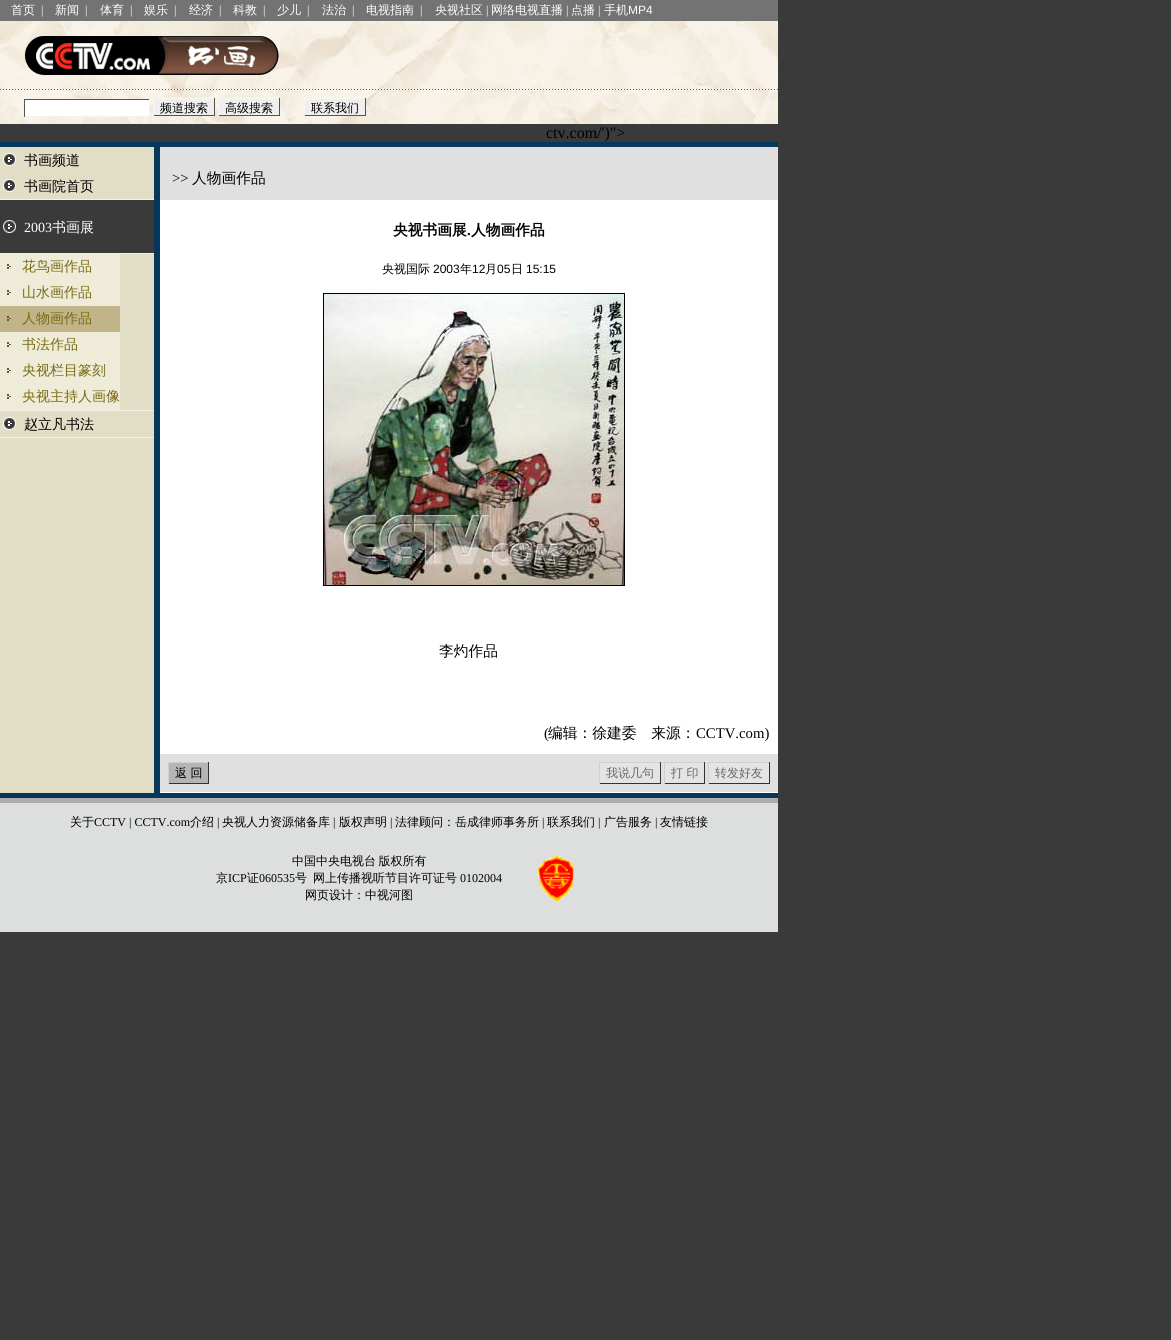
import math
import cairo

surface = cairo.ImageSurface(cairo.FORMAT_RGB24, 1171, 1340)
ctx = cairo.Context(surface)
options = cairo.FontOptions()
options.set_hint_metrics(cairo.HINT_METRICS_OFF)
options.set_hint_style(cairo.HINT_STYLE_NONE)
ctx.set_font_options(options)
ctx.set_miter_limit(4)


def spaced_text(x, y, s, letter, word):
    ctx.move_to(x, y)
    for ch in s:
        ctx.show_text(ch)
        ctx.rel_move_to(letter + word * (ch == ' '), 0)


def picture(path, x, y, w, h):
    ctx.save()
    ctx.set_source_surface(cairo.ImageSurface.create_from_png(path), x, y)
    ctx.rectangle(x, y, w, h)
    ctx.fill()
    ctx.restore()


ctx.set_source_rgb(0.227, 0.227, 0.227)
ctx.paint()
ctx.set_source_rgb(0.451, 0.451, 0.451)
ctx.rectangle(0, 0, 778, 21)
ctx.fill()
ctx.select_font_face("WenQuanYi Zen Hei Medium")
ctx.set_font_size(12)
ctx.set_source_rgb(1, 1, 1)
ctx.move_to(11, 14)
ctx.show_text("首页")
ctx.select_font_face("Liberation Serif")
ctx.move_to(41, 14)
ctx.show_text("|")
ctx.select_font_face("WenQuanYi Zen Hei Medium")
ctx.move_to(55, 14)
ctx.show_text("新闻")
ctx.select_font_face("Liberation Serif")
ctx.move_to(85, 14)
ctx.show_text("|")
ctx.select_font_face("WenQuanYi Zen Hei Medium")
ctx.move_to(100, 14)
ctx.show_text("体育")
ctx.select_font_face("Liberation Serif")
ctx.move_to(130, 14)
ctx.show_text("|")
ctx.select_font_face("WenQuanYi Zen Hei Medium")
ctx.move_to(144, 14)
ctx.show_text("娱乐")
ctx.select_font_face("Liberation Serif")
ctx.move_to(174, 14)
ctx.show_text("|")
ctx.select_font_face("WenQuanYi Zen Hei Medium")
ctx.move_to(189, 14)
ctx.show_text("经济")
ctx.select_font_face("Liberation Serif")
ctx.move_to(219, 14)
ctx.show_text("|")
ctx.select_font_face("WenQuanYi Zen Hei Medium")
ctx.move_to(233, 14)
ctx.show_text("科教")
ctx.select_font_face("Liberation Serif")
ctx.move_to(263, 14)
ctx.show_text("|")
ctx.select_font_face("WenQuanYi Zen Hei Medium")
ctx.move_to(277, 14)
ctx.show_text("少儿")
ctx.select_font_face("Liberation Serif")
ctx.move_to(307, 14)
ctx.show_text("|")
ctx.select_font_face("WenQuanYi Zen Hei Medium")
ctx.move_to(322, 14)
ctx.show_text("法治")
ctx.select_font_face("Liberation Serif")
ctx.move_to(352, 14)
ctx.show_text("|")
ctx.select_font_face("WenQuanYi Zen Hei Medium")
ctx.move_to(366, 14)
ctx.show_text("电视指南")
ctx.select_font_face("Liberation Serif")
ctx.move_to(420, 14)
ctx.show_text("|")
ctx.select_font_face("WenQuanYi Zen Hei Medium")
ctx.move_to(435, 14)
ctx.show_text("央视社区")
ctx.select_font_face("Liberation Serif")
ctx.move_to(486, 14)
ctx.show_text("|")
ctx.select_font_face("WenQuanYi Zen Hei Medium")
ctx.move_to(491, 14)
ctx.show_text("网络电视直播")
ctx.select_font_face("Liberation Serif")
ctx.move_to(566, 14)
ctx.show_text("|")
ctx.select_font_face("WenQuanYi Zen Hei Medium")
ctx.move_to(571, 14)
ctx.show_text("点播")
ctx.select_font_face("Liberation Serif")
ctx.move_to(598, 14)
ctx.show_text("|")
ctx.select_font_face("WenQuanYi Zen Hei Medium")
ctx.move_to(604, 14)
ctx.show_text("手机")
ctx.select_font_face("Liberation Sans")
ctx.move_to(628, 14)
ctx.show_text("MP4")
picture("img1.png", 0, 21, 778, 68)
picture("img2.png", 25, 36, 254, 39)
picture("img3.png", 0, 89, 778, 1)
picture("img4.png", 0, 90, 778, 34)
ctx.rectangle(25, 100, 124, 16)
ctx.fill()
ctx.set_source_rgb(0.337, 0.325, 0.31)
ctx.rectangle(24, 99, 126, 1)
ctx.fill()
ctx.set_source_rgb(0.969, 0.945, 0.914)
ctx.rectangle(149, 99, 1, 18)
ctx.fill()
ctx.rectangle(24, 116, 126, 1)
ctx.fill()
ctx.set_source_rgb(0.337, 0.325, 0.31)
ctx.rectangle(24, 99, 1, 18)
ctx.fill()
ctx.set_source_rgb(0.937, 0.937, 0.937)
ctx.rectangle(154, 99, 60, 16)
ctx.fill()
ctx.set_source_rgb(0.98, 0.965, 0.945)
ctx.rectangle(153, 98, 62, 1)
ctx.fill()
ctx.set_source_rgb(0.333, 0.325, 0.306)
ctx.rectangle(214, 98, 1, 18)
ctx.fill()
ctx.rectangle(153, 115, 62, 1)
ctx.fill()
ctx.set_source_rgb(0.98, 0.965, 0.945)
ctx.rectangle(153, 98, 1, 18)
ctx.fill()
ctx.select_font_face("WenQuanYi Zen Hei Medium")
ctx.set_source_rgb(0, 0, 0)
ctx.move_to(160, 112)
ctx.show_text("频道搜索")
ctx.set_source_rgb(0.937, 0.937, 0.937)
ctx.rectangle(219, 99, 60, 16)
ctx.fill()
ctx.set_source_rgb(0.98, 0.965, 0.945)
ctx.rectangle(218, 98, 62, 1)
ctx.fill()
ctx.set_source_rgb(0.333, 0.325, 0.306)
ctx.rectangle(279, 98, 1, 18)
ctx.fill()
ctx.rectangle(218, 115, 62, 1)
ctx.fill()
ctx.set_source_rgb(0.98, 0.965, 0.945)
ctx.rectangle(218, 98, 1, 18)
ctx.fill()
ctx.set_source_rgb(0, 0, 0)
ctx.move_to(225, 112)
ctx.show_text("高级搜索")
ctx.set_source_rgb(0.937, 0.937, 0.937)
ctx.rectangle(305, 99, 60, 16)
ctx.fill()
ctx.set_source_rgb(0.98, 0.965, 0.945)
ctx.rectangle(304, 98, 62, 1)
ctx.fill()
ctx.set_source_rgb(0.333, 0.325, 0.306)
ctx.rectangle(365, 98, 1, 18)
ctx.fill()
ctx.rectangle(304, 115, 62, 1)
ctx.fill()
ctx.set_source_rgb(0.98, 0.965, 0.945)
ctx.rectangle(304, 98, 1, 18)
ctx.fill()
ctx.set_source_rgb(0, 0, 0)
ctx.move_to(311, 112)
ctx.show_text("联系我们")
ctx.select_font_face("Liberation Serif")
ctx.set_font_size(16)
ctx.move_to(546, 138)
ctx.show_text("ctv.com/')\">")
ctx.set_source_rgb(0.027, 0.216, 0.365)
ctx.rectangle(0, 142, 778, 5)
ctx.fill()
ctx.set_source_rgb(0.886, 0.871, 0.773)
ctx.rectangle(0, 147, 154, 646)
ctx.fill()
picture("img5.png", 3, 153, 13, 13)
ctx.select_font_face("WenQuanYi Zen Hei Medium")
ctx.set_font_size(14)
ctx.set_source_rgb(0, 0, 0)
ctx.move_to(24, 165)
ctx.show_text("书画频道")
picture("img5.png", 3, 179, 13, 13)
ctx.move_to(24, 191)
ctx.show_text("书画院首页")
ctx.set_source_rgb(0.953, 0.949, 0.91)
ctx.rectangle(0, 199, 154, 1)
ctx.fill()
ctx.set_source_rgb(0.227, 0.227, 0.227)
ctx.rectangle(0, 200, 154, 53)
ctx.fill()
picture("img6.png", 3, 220, 13, 13)
ctx.select_font_face("Liberation Serif")
ctx.set_source_rgb(1, 1, 1)
ctx.move_to(24, 232)
ctx.show_text("2003")
ctx.select_font_face("WenQuanYi Zen Hei Medium")
ctx.move_to(52, 232)
ctx.show_text("书画展")
ctx.set_source_rgb(0.953, 0.949, 0.91)
ctx.rectangle(0, 253, 154, 1)
ctx.fill()
ctx.set_source_rgb(0.933, 0.922, 0.851)
ctx.rectangle(0, 254, 120, 52)
ctx.fill()
picture("img7.png", 7, 264, 4, 5)
ctx.set_source_rgb(0.471, 0.416, 0.075)
ctx.move_to(22, 271)
ctx.show_text("花鸟画作品")
picture("img7.png", 7, 290, 4, 5)
ctx.move_to(22, 297)
ctx.show_text("山水画作品")
ctx.set_source_rgb(0.757, 0.706, 0.533)
ctx.rectangle(0, 306, 120, 26)
ctx.fill()
picture("img8.png", 7, 316, 4, 5)
ctx.set_source_rgb(0.471, 0.416, 0.075)
ctx.move_to(22, 323)
ctx.show_text("人物画作品")
ctx.set_source_rgb(0.933, 0.922, 0.851)
ctx.rectangle(0, 332, 120, 78)
ctx.fill()
picture("img7.png", 7, 342, 4, 5)
ctx.set_source_rgb(0.471, 0.416, 0.075)
ctx.move_to(22, 349)
ctx.show_text("书法作品")
picture("img7.png", 7, 368, 4, 5)
ctx.move_to(22, 375)
ctx.show_text("央视栏目篆刻")
picture("img7.png", 7, 394, 4, 5)
ctx.move_to(22, 401)
ctx.show_text("央视主持人画像")
ctx.set_source_rgb(0.953, 0.949, 0.91)
ctx.rectangle(0, 410, 154, 1)
ctx.fill()
picture("img5.png", 3, 417, 13, 13)
ctx.set_source_rgb(0, 0, 0)
ctx.move_to(24, 429)
ctx.show_text("赵立凡书法")
ctx.set_source_rgb(0.953, 0.949, 0.91)
ctx.rectangle(0, 437, 154, 1)
ctx.fill()
ctx.set_source_rgb(0.027, 0.216, 0.365)
ctx.rectangle(154, 147, 6, 646)
ctx.fill()
ctx.set_source_rgb(1, 1, 1)
ctx.rectangle(160, 200, 618, 593)
ctx.fill()
ctx.set_source_rgb(0.878, 0.878, 0.878)
ctx.rectangle(160, 147, 618, 53)
ctx.fill()
ctx.select_font_face("Liberation Serif")
ctx.set_font_size(14.75)
ctx.set_source_rgb(0, 0, 0)
ctx.move_to(172, 183)
ctx.show_text(">>")
ctx.select_font_face("WenQuanYi Zen Hei Medium")
ctx.move_to(192, 183)
ctx.show_text("人物画作品")
ctx.select_font_face("WenQuanYi Zen Hei", cairo.FONT_SLANT_NORMAL, cairo.FONT_WEIGHT_BOLD)
ctx.move_to(393, 235)
ctx.show_text("央视书画展")
ctx.select_font_face("Liberation Serif", cairo.FONT_SLANT_NORMAL, cairo.FONT_WEIGHT_BOLD)
ctx.move_to(467, 235)
ctx.show_text(".")
ctx.select_font_face("WenQuanYi Zen Hei", cairo.FONT_SLANT_NORMAL, cairo.FONT_WEIGHT_BOLD)
ctx.move_to(471, 235)
ctx.show_text("人物画作品")
ctx.select_font_face("WenQuanYi Zen Hei Medium")
ctx.set_font_size(12)
ctx.move_to(382, 273)
ctx.show_text("央视国际")
ctx.select_font_face("Liberation Sans")
ctx.move_to(433, 273)
ctx.show_text("2003")
ctx.select_font_face("WenQuanYi Zen Hei Medium")
ctx.move_to(460, 273)
ctx.show_text("年")
ctx.select_font_face("Liberation Sans")
ctx.move_to(472, 273)
ctx.show_text("12")
ctx.select_font_face("WenQuanYi Zen Hei Medium")
ctx.move_to(485, 273)
ctx.show_text("月")
ctx.select_font_face("Liberation Sans")
ctx.move_to(497, 273)
ctx.show_text("05")
ctx.select_font_face("WenQuanYi Zen Hei Medium")
ctx.move_to(511, 273)
ctx.show_text("日")
ctx.select_font_face("Liberation Sans")
ctx.move_to(526, 273)
ctx.show_text("15:15")
ctx.rectangle(323.5, 293.5, 301, 292)
ctx.set_line_width(1)
ctx.stroke()
picture("img9.png", 324, 294, 300, 291)
ctx.select_font_face("WenQuanYi Zen Hei Medium")
ctx.set_font_size(14.75)
ctx.move_to(439, 656)
ctx.show_text("李灼作品")
ctx.select_font_face("Liberation Serif")
ctx.move_to(544, 738)
ctx.show_text("(")
ctx.select_font_face("WenQuanYi Zen Hei Medium")
ctx.move_to(548, 738)
ctx.show_text("编辑：徐建委　来源：")
ctx.select_font_face("Liberation Serif")
ctx.move_to(696, 738)
ctx.show_text("CCTV.com)")
ctx.set_source_rgb(0.878, 0.878, 0.878)
ctx.rectangle(160, 754, 618, 38)
ctx.fill()
ctx.set_source_rgb(0.71, 0.71, 0.71)
ctx.rectangle(169, 763, 39, 20)
ctx.fill()
ctx.set_source_rgb(0.816, 0.816, 0.816)
ctx.rectangle(168, 762, 41, 1)
ctx.fill()
ctx.set_source_rgb(0.192, 0.192, 0.192)
ctx.rectangle(208, 762, 1, 22)
ctx.fill()
ctx.rectangle(168, 783, 41, 1)
ctx.fill()
ctx.set_source_rgb(0.816, 0.816, 0.816)
ctx.rectangle(168, 762, 1, 22)
ctx.fill()
ctx.select_font_face("WenQuanYi Zen Hei Medium")
ctx.set_font_size(12)
ctx.set_source_rgb(0, 0, 0)
ctx.move_to(175, 777)
ctx.show_text("返 回")
ctx.set_source_rgb(0.894, 0.894, 0.894)
ctx.rectangle(600, 763, 60, 20)
ctx.fill()
ctx.set_source_rgb(0.816, 0.816, 0.816)
ctx.rectangle(599, 762, 62, 1)
ctx.fill()
ctx.set_source_rgb(0.192, 0.192, 0.192)
ctx.rectangle(660, 762, 1, 22)
ctx.fill()
ctx.rectangle(599, 783, 62, 1)
ctx.fill()
ctx.set_source_rgb(0.816, 0.816, 0.816)
ctx.rectangle(599, 762, 1, 22)
ctx.fill()
ctx.set_source_rgb(0.4, 0.4, 0.4)
ctx.move_to(606, 777)
ctx.show_text("我说几句")
ctx.set_source_rgb(0.894, 0.894, 0.894)
ctx.rectangle(665, 763, 39, 20)
ctx.fill()
ctx.set_source_rgb(0.816, 0.816, 0.816)
ctx.rectangle(664, 762, 41, 1)
ctx.fill()
ctx.set_source_rgb(0.192, 0.192, 0.192)
ctx.rectangle(704, 762, 1, 22)
ctx.fill()
ctx.rectangle(664, 783, 41, 1)
ctx.fill()
ctx.set_source_rgb(0.816, 0.816, 0.816)
ctx.rectangle(664, 762, 1, 22)
ctx.fill()
ctx.set_source_rgb(0.4, 0.4, 0.4)
ctx.move_to(671, 777)
ctx.show_text("打 印")
ctx.set_source_rgb(0.894, 0.894, 0.894)
ctx.rectangle(709, 763, 60, 20)
ctx.fill()
ctx.set_source_rgb(0.816, 0.816, 0.816)
ctx.rectangle(708, 762, 62, 1)
ctx.fill()
ctx.set_source_rgb(0.192, 0.192, 0.192)
ctx.rectangle(769, 762, 1, 22)
ctx.fill()
ctx.rectangle(708, 783, 62, 1)
ctx.fill()
ctx.set_source_rgb(0.816, 0.816, 0.816)
ctx.rectangle(708, 762, 1, 22)
ctx.fill()
ctx.set_source_rgb(0.4, 0.4, 0.4)
ctx.move_to(715, 777)
ctx.show_text("转发好友")
ctx.set_source_rgb(0.027, 0.216, 0.365)
ctx.rectangle(0, 793, 778, 5)
ctx.fill()
ctx.set_source_rgb(0.686, 0.682, 0.686)
ctx.rectangle(0, 798, 778, 5)
ctx.fill()
ctx.set_source_rgb(0.867, 0.871, 0.871)
ctx.rectangle(0, 803, 778, 129)
ctx.fill()
ctx.set_source_rgb(0, 0, 0)
ctx.move_to(70, 826)
ctx.show_text("关于")
ctx.select_font_face("Liberation Serif")
ctx.move_to(94, 826)
ctx.show_text("CCTV | CCTV.com")
ctx.select_font_face("WenQuanYi Zen Hei Medium")
ctx.move_to(190, 826)
ctx.show_text("介绍")
ctx.select_font_face("Liberation Serif")
ctx.move_to(217, 826)
ctx.show_text("|")
ctx.select_font_face("WenQuanYi Zen Hei Medium")
ctx.move_to(222, 826)
ctx.show_text("央视人力资源储备库")
ctx.select_font_face("Liberation Serif")
ctx.move_to(333, 826)
ctx.show_text("|")
ctx.select_font_face("WenQuanYi Zen Hei Medium")
ctx.move_to(339, 826)
ctx.show_text("版权声明")
ctx.select_font_face("Liberation Serif")
ctx.move_to(390, 826)
ctx.show_text("|")
ctx.select_font_face("WenQuanYi Zen Hei Medium")
ctx.move_to(395, 826)
ctx.show_text("法律顾问：岳成律师事务所")
ctx.select_font_face("Liberation Serif")
ctx.move_to(542, 826)
ctx.show_text("|")
ctx.select_font_face("WenQuanYi Zen Hei Medium")
ctx.move_to(547, 826)
ctx.show_text("联系我们")
ctx.select_font_face("Liberation Serif")
ctx.move_to(598, 826)
ctx.show_text("|")
ctx.select_font_face("WenQuanYi Zen Hei Medium")
ctx.move_to(604, 826)
ctx.show_text("广告服务")
ctx.select_font_face("Liberation Serif")
ctx.move_to(655, 826)
ctx.show_text("|")
ctx.select_font_face("WenQuanYi Zen Hei Medium")
ctx.move_to(660, 826)
ctx.show_text("友情链接")
spaced_text(292, 865, "中国中央电视台 版权所有", 0, -1)
ctx.move_to(216, 882)
ctx.show_text("京")
ctx.select_font_face("Liberation Serif")
ctx.move_to(228, 882)
ctx.show_text("ICP")
ctx.select_font_face("WenQuanYi Zen Hei Medium")
ctx.move_to(247, 882)
ctx.show_text("证")
ctx.select_font_face("Liberation Serif")
ctx.move_to(259, 882)
ctx.show_text("060535")
ctx.select_font_face("WenQuanYi Zen Hei Medium")
ctx.move_to(295, 882)
ctx.show_text("号")
ctx.move_to(313, 882)
ctx.show_text("网上传播视听节目许可证号")
ctx.select_font_face("Liberation Serif")
ctx.move_to(460, 882)
ctx.show_text("0102004")
ctx.select_font_face("WenQuanYi Zen Hei Medium")
ctx.move_to(305, 899)
ctx.show_text("网页设计：中视河图")
picture("img10.png", 538, 856, 36, 45)
surface.write_to_png("page.png")
